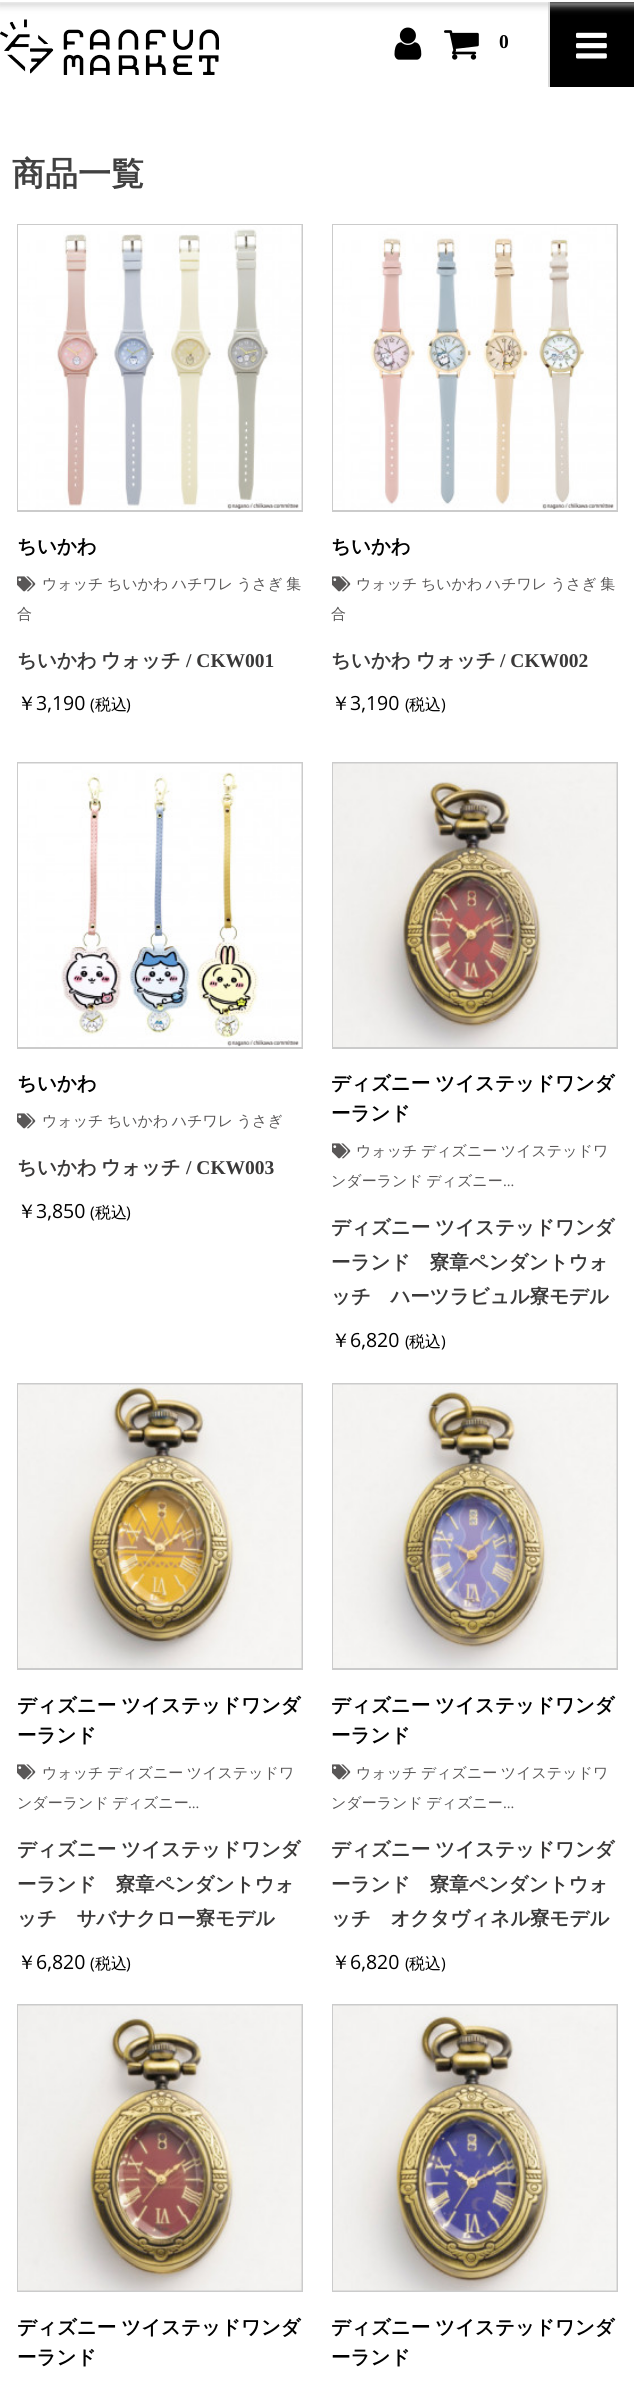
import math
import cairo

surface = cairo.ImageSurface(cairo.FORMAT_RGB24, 634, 2386)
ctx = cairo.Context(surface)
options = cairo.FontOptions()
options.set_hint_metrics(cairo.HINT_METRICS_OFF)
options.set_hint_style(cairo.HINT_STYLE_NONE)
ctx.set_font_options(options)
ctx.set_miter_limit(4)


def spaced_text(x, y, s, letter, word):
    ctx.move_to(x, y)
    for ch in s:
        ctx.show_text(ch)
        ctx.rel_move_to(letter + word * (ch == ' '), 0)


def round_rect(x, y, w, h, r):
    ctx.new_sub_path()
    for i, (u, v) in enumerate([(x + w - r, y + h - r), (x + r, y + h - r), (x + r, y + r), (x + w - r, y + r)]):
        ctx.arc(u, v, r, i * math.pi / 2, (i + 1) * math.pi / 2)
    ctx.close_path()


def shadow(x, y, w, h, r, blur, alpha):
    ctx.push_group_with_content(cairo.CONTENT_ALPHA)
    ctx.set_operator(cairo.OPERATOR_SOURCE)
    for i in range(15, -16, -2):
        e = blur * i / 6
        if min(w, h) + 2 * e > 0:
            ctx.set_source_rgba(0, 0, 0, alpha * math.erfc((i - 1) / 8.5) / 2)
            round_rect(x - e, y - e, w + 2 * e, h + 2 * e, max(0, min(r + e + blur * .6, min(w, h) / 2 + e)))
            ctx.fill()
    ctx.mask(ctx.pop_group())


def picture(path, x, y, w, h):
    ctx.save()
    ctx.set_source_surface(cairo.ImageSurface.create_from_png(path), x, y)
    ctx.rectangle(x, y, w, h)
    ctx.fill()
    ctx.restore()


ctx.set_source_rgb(1, 1, 1)
ctx.paint()
ctx.set_source_rgb(0, 0, 0)
ctx.rectangle(550, 2, 84, 85)
ctx.fill()
ctx.set_source_rgb(0.855, 0.855, 0.855)
ctx.rectangle(548, 0, 2, 87)
ctx.fill()
ctx.set_source_rgb(0.8, 0.8, 0.8)
shadow(0, 3, 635, 2, 0, 4, 1)
ctx.set_source_rgb(1, 1, 1)
ctx.rectangle(0, 0, 634, 2)
ctx.fill()
picture("img1.png", 0, 19, 219, 56)
picture("img2.png", 394, 27, 28, 33)
picture("img3.png", 444, 30, 35, 30)
ctx.select_font_face("Liberation Serif", cairo.FONT_SLANT_NORMAL, cairo.FONT_WEIGHT_BOLD)
ctx.set_font_size(19.5)
ctx.set_source_rgb(0, 0, 0)
ctx.move_to(499, 48)
ctx.show_text("0")
picture("img4.png", 576, 32, 31, 27)
ctx.select_font_face("WenQuanYi Zen Hei", cairo.FONT_SLANT_NORMAL, cairo.FONT_WEIGHT_BOLD)
ctx.set_font_size(33)
ctx.set_source_rgb(0.255, 0.255, 0.255)
ctx.move_to(12, 185)
ctx.show_text("商品一覧")
ctx.rectangle(18, 225, 284, 286)
ctx.set_source_rgb(0.796, 0.796, 0.796)
ctx.stroke()
picture("img5.png", 18, 225, 284, 285)
ctx.set_font_size(19.5)
ctx.set_source_rgb(0, 0, 0)
ctx.move_to(17, 553)
ctx.show_text("ちいかわ")
picture("img6.png", 17, 576, 19, 16)
ctx.select_font_face("WenQuanYi Zen Hei Medium")
ctx.set_font_size(15)
ctx.set_source_rgb(0.349, 0.341, 0.341)
spaced_text(42, 589, "ウォッチ ちいかわ ハチワレ うさぎ 集", 0, -1)
ctx.move_to(17, 619)
ctx.show_text("合")
ctx.select_font_face("WenQuanYi Zen Hei", cairo.FONT_SLANT_NORMAL, cairo.FONT_WEIGHT_BOLD)
ctx.set_font_size(19.5)
ctx.set_source_rgb(0.227, 0.224, 0.224)
ctx.move_to(17, 667)
ctx.show_text("ちいかわ")
ctx.move_to(101, 667)
ctx.show_text("ウォッチ")
ctx.select_font_face("Liberation Serif", cairo.FONT_SLANT_NORMAL, cairo.FONT_WEIGHT_BOLD)
ctx.move_to(186, 667)
ctx.show_text("/ CKW001")
ctx.select_font_face("WenQuanYi Zen Hei Medium")
ctx.set_source_rgb(0, 0, 0)
ctx.move_to(17, 710)
ctx.show_text("￥")
ctx.select_font_face("Open Sans")
ctx.move_to(36, 710)
ctx.show_text("3,190")
ctx.set_font_size(16)
ctx.move_to(90, 710)
ctx.show_text("(")
ctx.select_font_face("WenQuanYi Zen Hei Medium")
ctx.move_to(95, 710)
ctx.show_text("税込")
ctx.select_font_face("Open Sans")
ctx.move_to(126, 710)
ctx.show_text(")")
ctx.rectangle(333, 225, 284, 286)
ctx.set_source_rgb(0.796, 0.796, 0.796)
ctx.stroke()
picture("img7.png", 333, 225, 284, 285)
ctx.select_font_face("WenQuanYi Zen Hei", cairo.FONT_SLANT_NORMAL, cairo.FONT_WEIGHT_BOLD)
ctx.set_font_size(19.5)
ctx.set_source_rgb(0, 0, 0)
ctx.move_to(331, 553)
ctx.show_text("ちいかわ")
picture("img6.png", 332, 576, 19, 16)
ctx.select_font_face("WenQuanYi Zen Hei Medium")
ctx.set_font_size(15)
ctx.set_source_rgb(0.349, 0.341, 0.341)
spaced_text(356, 589, "ウォッチ ちいかわ ハチワレ うさぎ 集", 0, -1)
ctx.move_to(331, 619)
ctx.show_text("合")
ctx.select_font_face("WenQuanYi Zen Hei", cairo.FONT_SLANT_NORMAL, cairo.FONT_WEIGHT_BOLD)
ctx.set_font_size(19.5)
ctx.set_source_rgb(0.227, 0.224, 0.224)
ctx.move_to(331, 667)
ctx.show_text("ちいかわ")
ctx.move_to(416, 667)
ctx.show_text("ウォッチ")
ctx.select_font_face("Liberation Serif", cairo.FONT_SLANT_NORMAL, cairo.FONT_WEIGHT_BOLD)
ctx.move_to(500, 667)
ctx.show_text("/ CKW002")
ctx.select_font_face("WenQuanYi Zen Hei Medium")
ctx.set_source_rgb(0, 0, 0)
ctx.move_to(331, 710)
ctx.show_text("￥")
ctx.select_font_face("Open Sans")
ctx.move_to(350, 710)
ctx.show_text("3,190")
ctx.set_font_size(16)
ctx.move_to(405, 710)
ctx.show_text("(")
ctx.select_font_face("WenQuanYi Zen Hei Medium")
ctx.move_to(409, 710)
ctx.show_text("税込")
ctx.select_font_face("Open Sans")
ctx.move_to(441, 710)
ctx.show_text(")")
ctx.rectangle(18, 763, 284, 285)
ctx.set_source_rgb(0.796, 0.796, 0.796)
ctx.stroke()
picture("img8.png", 18, 763, 284, 284)
ctx.select_font_face("WenQuanYi Zen Hei", cairo.FONT_SLANT_NORMAL, cairo.FONT_WEIGHT_BOLD)
ctx.set_font_size(19.5)
ctx.set_source_rgb(0, 0, 0)
ctx.move_to(17, 1090)
ctx.show_text("ちいかわ")
picture("img6.png", 17, 1113, 19, 16)
ctx.select_font_face("WenQuanYi Zen Hei Medium")
ctx.set_font_size(15)
ctx.set_source_rgb(0.349, 0.341, 0.341)
spaced_text(42, 1126, "ウォッチ ちいかわ ハチワレ うさぎ", 0, -1)
ctx.select_font_face("WenQuanYi Zen Hei", cairo.FONT_SLANT_NORMAL, cairo.FONT_WEIGHT_BOLD)
ctx.set_font_size(19.5)
ctx.set_source_rgb(0.227, 0.224, 0.224)
ctx.move_to(17, 1174)
ctx.show_text("ちいかわ")
ctx.move_to(101, 1174)
ctx.show_text("ウォッチ")
ctx.select_font_face("Liberation Serif", cairo.FONT_SLANT_NORMAL, cairo.FONT_WEIGHT_BOLD)
ctx.move_to(186, 1174)
ctx.show_text("/ CKW003")
ctx.select_font_face("WenQuanYi Zen Hei Medium")
ctx.set_source_rgb(0, 0, 0)
ctx.move_to(17, 1218)
ctx.show_text("￥")
ctx.select_font_face("Open Sans")
ctx.move_to(36, 1218)
ctx.show_text("3,850")
ctx.set_font_size(16)
ctx.move_to(90, 1218)
ctx.show_text("(")
ctx.select_font_face("WenQuanYi Zen Hei Medium")
ctx.move_to(95, 1218)
ctx.show_text("税込")
ctx.select_font_face("Open Sans")
ctx.move_to(126, 1218)
ctx.show_text(")")
ctx.rectangle(333, 763, 284, 285)
ctx.set_source_rgb(0.796, 0.796, 0.796)
ctx.stroke()
picture("img9.png", 333, 763, 284, 284)
ctx.select_font_face("WenQuanYi Zen Hei", cairo.FONT_SLANT_NORMAL, cairo.FONT_WEIGHT_BOLD)
ctx.set_font_size(19.5)
ctx.set_source_rgb(0, 0, 0)
spaced_text(331, 1090, "ディズニー ツイステッドワンダ", 0, -1)
ctx.move_to(331, 1120)
ctx.show_text("ーランド")
picture("img6.png", 332, 1143, 19, 16)
ctx.select_font_face("WenQuanYi Zen Hei Medium")
ctx.set_font_size(15)
ctx.set_source_rgb(0.349, 0.341, 0.341)
spaced_text(356, 1156, "ウォッチ ディズニー ツイステッドワ", 0, -1)
spaced_text(331, 1186, "ンダーランド ディズニー", 0, -1)
ctx.select_font_face("Liberation Serif")
ctx.move_to(503, 1186)
ctx.show_text("...")
ctx.select_font_face("WenQuanYi Zen Hei", cairo.FONT_SLANT_NORMAL, cairo.FONT_WEIGHT_BOLD)
ctx.set_font_size(19.5)
ctx.set_source_rgb(0.227, 0.224, 0.224)
spaced_text(331, 1234, "ディズニー ツイステッドワンダ", 0, -1)
ctx.move_to(331, 1269)
ctx.show_text("ーランド　寮章ペンダントウォ")
ctx.move_to(331, 1303)
ctx.show_text("ッチ　ハーツラビュル寮モデル")
ctx.select_font_face("WenQuanYi Zen Hei Medium")
ctx.set_source_rgb(0, 0, 0)
ctx.move_to(331, 1347)
ctx.show_text("￥")
ctx.select_font_face("Open Sans")
ctx.move_to(350, 1347)
ctx.show_text("6,820")
ctx.set_font_size(16)
ctx.move_to(405, 1347)
ctx.show_text("(")
ctx.select_font_face("WenQuanYi Zen Hei Medium")
ctx.move_to(409, 1347)
ctx.show_text("税込")
ctx.select_font_face("Open Sans")
ctx.move_to(441, 1347)
ctx.show_text(")")
ctx.rectangle(18, 1384, 284, 285)
ctx.set_source_rgb(0.796, 0.796, 0.796)
ctx.stroke()
picture("img10.png", 18, 1384, 284, 284)
ctx.select_font_face("WenQuanYi Zen Hei", cairo.FONT_SLANT_NORMAL, cairo.FONT_WEIGHT_BOLD)
ctx.set_font_size(19.5)
ctx.set_source_rgb(0, 0, 0)
spaced_text(17, 1712, "ディズニー ツイステッドワンダ", 0, -1)
ctx.move_to(17, 1742)
ctx.show_text("ーランド")
picture("img6.png", 17, 1764, 19, 16)
ctx.select_font_face("WenQuanYi Zen Hei Medium")
ctx.set_font_size(15)
ctx.set_source_rgb(0.349, 0.341, 0.341)
spaced_text(42, 1778, "ウォッチ ディズニー ツイステッドワ", 0, -1)
spaced_text(17, 1808, "ンダーランド ディズニー", 0, -1)
ctx.select_font_face("Liberation Serif")
ctx.move_to(188, 1808)
ctx.show_text("...")
ctx.select_font_face("WenQuanYi Zen Hei", cairo.FONT_SLANT_NORMAL, cairo.FONT_WEIGHT_BOLD)
ctx.set_font_size(19.5)
ctx.set_source_rgb(0.227, 0.224, 0.224)
spaced_text(17, 1856, "ディズニー ツイステッドワンダ", 0, -1)
ctx.move_to(17, 1891)
ctx.show_text("ーランド　寮章ペンダントウォ")
ctx.move_to(17, 1925)
ctx.show_text("ッチ　サバナクロー寮モデル")
ctx.select_font_face("WenQuanYi Zen Hei Medium")
ctx.set_source_rgb(0, 0, 0)
ctx.move_to(17, 1969)
ctx.show_text("￥")
ctx.select_font_face("Open Sans")
ctx.move_to(36, 1969)
ctx.show_text("6,820")
ctx.set_font_size(16)
ctx.move_to(90, 1969)
ctx.show_text("(")
ctx.select_font_face("WenQuanYi Zen Hei Medium")
ctx.move_to(95, 1969)
ctx.show_text("税込")
ctx.select_font_face("Open Sans")
ctx.move_to(126, 1969)
ctx.show_text(")")
ctx.rectangle(333, 1384, 284, 285)
ctx.set_source_rgb(0.796, 0.796, 0.796)
ctx.stroke()
picture("img11.png", 333, 1384, 284, 284)
ctx.select_font_face("WenQuanYi Zen Hei", cairo.FONT_SLANT_NORMAL, cairo.FONT_WEIGHT_BOLD)
ctx.set_font_size(19.5)
ctx.set_source_rgb(0, 0, 0)
spaced_text(331, 1712, "ディズニー ツイステッドワンダ", 0, -1)
ctx.move_to(331, 1742)
ctx.show_text("ーランド")
picture("img6.png", 332, 1764, 19, 16)
ctx.select_font_face("WenQuanYi Zen Hei Medium")
ctx.set_font_size(15)
ctx.set_source_rgb(0.349, 0.341, 0.341)
spaced_text(356, 1778, "ウォッチ ディズニー ツイステッドワ", 0, -1)
spaced_text(331, 1808, "ンダーランド ディズニー", 0, -1)
ctx.select_font_face("Liberation Serif")
ctx.move_to(503, 1808)
ctx.show_text("...")
ctx.select_font_face("WenQuanYi Zen Hei", cairo.FONT_SLANT_NORMAL, cairo.FONT_WEIGHT_BOLD)
ctx.set_font_size(19.5)
ctx.set_source_rgb(0.227, 0.224, 0.224)
spaced_text(331, 1856, "ディズニー ツイステッドワンダ", 0, -1)
ctx.move_to(331, 1891)
ctx.show_text("ーランド　寮章ペンダントウォ")
ctx.move_to(331, 1925)
ctx.show_text("ッチ　オクタヴィネル寮モデル")
ctx.select_font_face("WenQuanYi Zen Hei Medium")
ctx.set_source_rgb(0, 0, 0)
ctx.move_to(331, 1969)
ctx.show_text("￥")
ctx.select_font_face("Open Sans")
ctx.move_to(350, 1969)
ctx.show_text("6,820")
ctx.set_font_size(16)
ctx.move_to(405, 1969)
ctx.show_text("(")
ctx.select_font_face("WenQuanYi Zen Hei Medium")
ctx.move_to(409, 1969)
ctx.show_text("税込")
ctx.select_font_face("Open Sans")
ctx.move_to(441, 1969)
ctx.show_text(")")
ctx.rectangle(18, 2005, 284, 286)
ctx.set_source_rgb(0.796, 0.796, 0.796)
ctx.stroke()
picture("img12.png", 18, 2005, 284, 286)
ctx.select_font_face("WenQuanYi Zen Hei", cairo.FONT_SLANT_NORMAL, cairo.FONT_WEIGHT_BOLD)
ctx.set_font_size(19.5)
ctx.set_source_rgb(0, 0, 0)
spaced_text(17, 2334, "ディズニー ツイステッドワンダ", 0, -1)
ctx.move_to(17, 2364)
ctx.show_text("ーランド")
ctx.rectangle(333, 2005, 284, 286)
ctx.set_source_rgb(0.796, 0.796, 0.796)
ctx.stroke()
picture("img13.png", 333, 2005, 284, 286)
ctx.set_source_rgb(0, 0, 0)
spaced_text(331, 2334, "ディズニー ツイステッドワンダ", 0, -1)
ctx.move_to(331, 2364)
ctx.show_text("ーランド")
surface.write_to_png("page.png")
